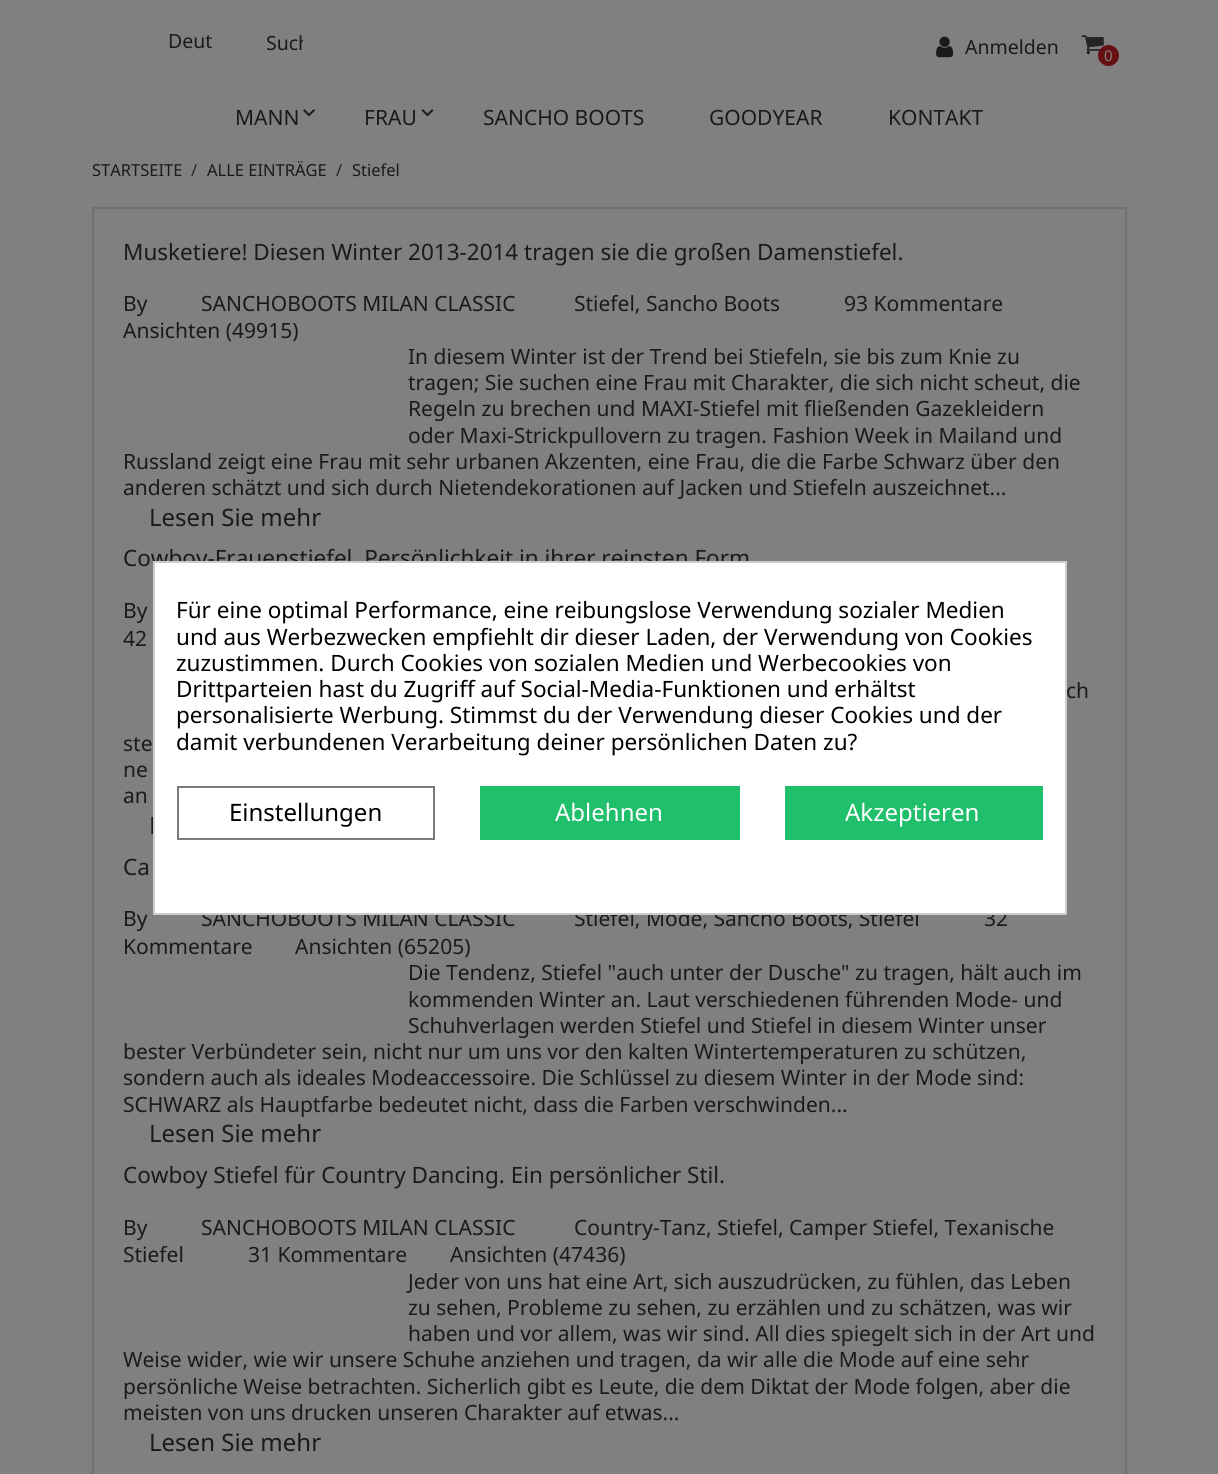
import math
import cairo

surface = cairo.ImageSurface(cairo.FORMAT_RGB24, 1218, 1474)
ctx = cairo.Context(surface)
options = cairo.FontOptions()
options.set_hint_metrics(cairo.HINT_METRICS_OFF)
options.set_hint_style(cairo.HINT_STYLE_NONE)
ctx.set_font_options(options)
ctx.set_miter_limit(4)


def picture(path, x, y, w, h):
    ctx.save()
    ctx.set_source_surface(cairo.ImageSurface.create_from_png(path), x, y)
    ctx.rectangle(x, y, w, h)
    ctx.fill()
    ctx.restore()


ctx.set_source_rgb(0.502, 0.502, 0.502)
ctx.paint()
ctx.select_font_face("Noto Sans")
ctx.set_font_size(19.5)
ctx.set_source_rgb(0.102, 0.102, 0.102)
ctx.move_to(168, 48)
ctx.show_text("Deut")
ctx.save()
ctx.rectangle(260, 29, 43, 27)
ctx.clip()
ctx.move_to(266, 50)
ctx.show_text("Such")
ctx.restore()
picture("img1.png", 936, 36, 18, 22)
ctx.move_to(965, 54)
ctx.show_text("Anmelden")
picture("img2.png", 1081, 35, 23, 20)
ctx.set_source_rgb(0.404, 0.063, 0.075)
ctx.arc(1108.5, 55.5, 10.5, 0, 2 * math.pi)
ctx.fill()
ctx.set_font_size(15)
ctx.set_source_rgb(0.502, 0.502, 0.502)
ctx.move_to(1104, 61)
ctx.show_text("0")
ctx.set_font_size(21)
ctx.set_source_rgb(0.102, 0.102, 0.102)
ctx.move_to(235, 125)
ctx.show_text("MANN")
picture("img3.png", 303, 109, 12, 8)
ctx.move_to(364, 125)
ctx.show_text("FRAU")
picture("img4.png", 421, 109, 13, 8)
ctx.move_to(483, 125)
ctx.show_text("SANCHO BOOTS")
ctx.move_to(709, 125)
ctx.show_text("GOODYEAR")
ctx.move_to(888, 125)
ctx.show_text("KONTAKT")
ctx.set_font_size(16.5)
ctx.move_to(92, 176)
ctx.show_text("STARTSEITE")
ctx.set_source_rgb(0.133, 0.133, 0.133)
ctx.move_to(191, 176)
ctx.show_text("/")
ctx.set_source_rgb(0.102, 0.102, 0.102)
ctx.move_to(207, 176)
ctx.show_text("ALLE EINTRÄGE")
ctx.set_source_rgb(0.133, 0.133, 0.133)
ctx.move_to(336, 176)
ctx.show_text("/")
ctx.set_source_rgb(0.102, 0.102, 0.102)
ctx.move_to(352, 176)
ctx.show_text("Stiefel")
ctx.rectangle(93, 208, 1033, 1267)
ctx.set_source_rgb(0.439, 0.439, 0.439)
ctx.stroke()
ctx.set_font_size(22.5)
ctx.set_source_rgb(0.102, 0.102, 0.102)
ctx.move_to(123, 260)
ctx.show_text("Musketiere! Diesen Winter 2013-2014 tragen sie die großen Damenstiefel.")
ctx.set_font_size(21)
ctx.move_to(123, 311)
ctx.show_text("By")
ctx.move_to(201, 311)
ctx.show_text("SANCHOBOOTS MILAN CLASSIC")
ctx.move_to(574, 311)
ctx.show_text("Stiefel, Sancho Boots")
ctx.move_to(844, 311)
ctx.show_text("93 Kommentare")
ctx.move_to(123, 338)
ctx.show_text("Ansichten (49915)")
ctx.move_to(408, 364)
ctx.show_text("In diesem Winter ist der Trend bei Stiefeln, sie bis zum Knie zu")
ctx.move_to(408, 390)
ctx.show_text("tragen; Sie suchen eine Frau mit Charakter, die sich nicht scheut, die")
ctx.move_to(408, 416)
ctx.show_text("Regeln zu brechen und MAXI-Stiefel mit fließenden Gazekleidern")
ctx.move_to(408, 443)
ctx.show_text("oder Maxi-Strickpullovern zu tragen. Fashion Week in Mailand und")
ctx.move_to(123, 469)
ctx.show_text("Russland zeigt eine Frau mit sehr urbanen Akzenten, eine Frau, die die Farbe Schwarz über den")
ctx.move_to(123, 495)
ctx.show_text("anderen schätzt und sich durch Nietendekorationen auf Jacken und Stiefeln auszeichnet...")
ctx.set_font_size(24)
ctx.move_to(149, 526)
ctx.show_text("Lesen Sie mehr")
ctx.set_font_size(22.5)
ctx.move_to(123, 566)
ctx.show_text("Cowboy-Frauenstiefel. Persönlichkeit in ihrer reinsten Form")
ctx.set_font_size(21)
ctx.move_to(123, 618)
ctx.show_text("By")
ctx.move_to(123, 646)
ctx.show_text("42")
ctx.move_to(1066, 698)
ctx.show_text("ch")
ctx.move_to(123, 751)
ctx.show_text("ste")
ctx.move_to(123, 777)
ctx.show_text("ne")
ctx.move_to(123, 803)
ctx.show_text("an")
ctx.set_font_size(24)
ctx.move_to(149, 834)
ctx.show_text("L")
ctx.set_font_size(22.5)
ctx.move_to(123, 875)
ctx.show_text("Ca")
ctx.set_font_size(21)
ctx.move_to(123, 926)
ctx.show_text("By")
ctx.move_to(201, 926)
ctx.show_text("SANCHOBOOTS MILAN CLASSIC")
ctx.move_to(574, 926)
ctx.show_text("Stiefel, Mode, Sancho Boots, Stiefel")
ctx.move_to(984, 926)
ctx.show_text("32")
ctx.move_to(123, 954)
ctx.show_text("Kommentare")
ctx.move_to(295, 954)
ctx.show_text("Ansichten (65205)")
ctx.move_to(408, 980)
ctx.show_text("Die Tendenz, Stiefel \"auch unter der Dusche\" zu tragen, hält auch im")
ctx.move_to(408, 1007)
ctx.show_text("kommenden Winter an. Laut verschiedenen führenden Mode- und")
ctx.move_to(408, 1033)
ctx.show_text("Schuhverlagen werden Stiefel und Stiefel in diesem Winter unser")
ctx.move_to(123, 1059)
ctx.show_text("bester Verbündeter sein, nicht nur um uns vor den kalten Wintertemperaturen zu schützen,")
ctx.move_to(123, 1085)
ctx.show_text("sondern auch als ideales Modeaccessoire. Die Schlüssel zu diesem Winter in der Mode sind:")
ctx.move_to(123, 1112)
ctx.show_text("SCHWARZ als Hauptfarbe bedeutet nicht, dass die Farben verschwinden...")
ctx.set_font_size(24)
ctx.move_to(149, 1142)
ctx.show_text("Lesen Sie mehr")
ctx.set_font_size(22.5)
ctx.move_to(123, 1183)
ctx.show_text("Cowboy Stiefel für Country Dancing. Ein persönlicher Stil.")
ctx.set_font_size(21)
ctx.move_to(123, 1235)
ctx.show_text("By")
ctx.move_to(201, 1235)
ctx.show_text("SANCHOBOOTS MILAN CLASSIC")
ctx.move_to(574, 1235)
ctx.show_text("Country-Tanz, Stiefel, Camper Stiefel, Texanische")
ctx.move_to(123, 1262)
ctx.show_text("Stiefel")
ctx.move_to(248, 1262)
ctx.show_text("31 Kommentare")
ctx.move_to(450, 1262)
ctx.show_text("Ansichten (47436)")
ctx.move_to(408, 1289)
ctx.show_text("Jeder von uns hat eine Art, sich auszudrücken, zu fühlen, das Leben")
ctx.move_to(408, 1315)
ctx.show_text("zu sehen, Probleme zu sehen, zu erzählen und zu schätzen, was wir")
ctx.move_to(408, 1341)
ctx.show_text("haben und vor allem, was wir sind. All dies spiegelt sich in der Art und")
ctx.move_to(123, 1367)
ctx.show_text("Weise wider, wie wir unsere Schuhe anziehen und tragen, da wir alle die Mode auf eine sehr")
ctx.move_to(123, 1394)
ctx.show_text("persönliche Weise betrachten. Sicherlich gibt es Leute, die dem Diktat der Mode folgen, aber die")
ctx.move_to(123, 1420)
ctx.show_text("meisten von uns drucken unseren Charakter auf etwas...")
ctx.set_font_size(24)
ctx.move_to(149, 1451)
ctx.show_text("Lesen Sie mehr")
ctx.set_source_rgb(1, 1, 1)
ctx.rectangle(154, 562, 912, 352)
ctx.fill_preserve()
ctx.set_source_rgb(0.8, 0.8, 0.8)
ctx.stroke()
ctx.set_font_size(22.5)
ctx.set_source_rgb(0, 0, 0)
ctx.move_to(176, 618)
ctx.show_text("Für eine optimal Performance, eine reibungslose Verwendung sozialer Medien")
ctx.move_to(176, 645)
ctx.show_text("und aus Werbezwecken empfiehlt dir dieser Laden, der Verwendung von Cookies")
ctx.move_to(176, 671)
ctx.show_text("zuzustimmen. Durch Cookies von sozialen Medien und Werbecookies von")
ctx.move_to(176, 697)
ctx.show_text("Drittparteien hast du Zugriff auf Social-Media-Funktionen und erhältst")
ctx.move_to(176, 723)
ctx.show_text("personalisierte Werbung. Stimmst du der Verwendung dieser Cookies und der")
ctx.move_to(176, 750)
ctx.show_text("damit verbundenen Verarbeitung deiner persönlichen Daten zu?")
ctx.rectangle(178, 787, 256, 52)
ctx.set_source_rgb(0.478, 0.478, 0.478)
ctx.stroke()
ctx.set_font_size(24)
ctx.set_source_rgb(0, 0, 0)
ctx.move_to(229, 821)
ctx.show_text("Einstellungen")
ctx.set_source_rgb(0.125, 0.749, 0.42)
ctx.rectangle(480, 786, 260, 54)
ctx.fill()
ctx.set_source_rgb(1, 1, 1)
ctx.move_to(555, 821)
ctx.show_text("Ablehnen")
ctx.set_source_rgb(0.125, 0.749, 0.42)
ctx.rectangle(785, 786, 258, 54)
ctx.fill()
ctx.set_source_rgb(1, 1, 1)
ctx.move_to(845, 821)
ctx.show_text("Akzeptieren")
surface.write_to_png("page.png")
